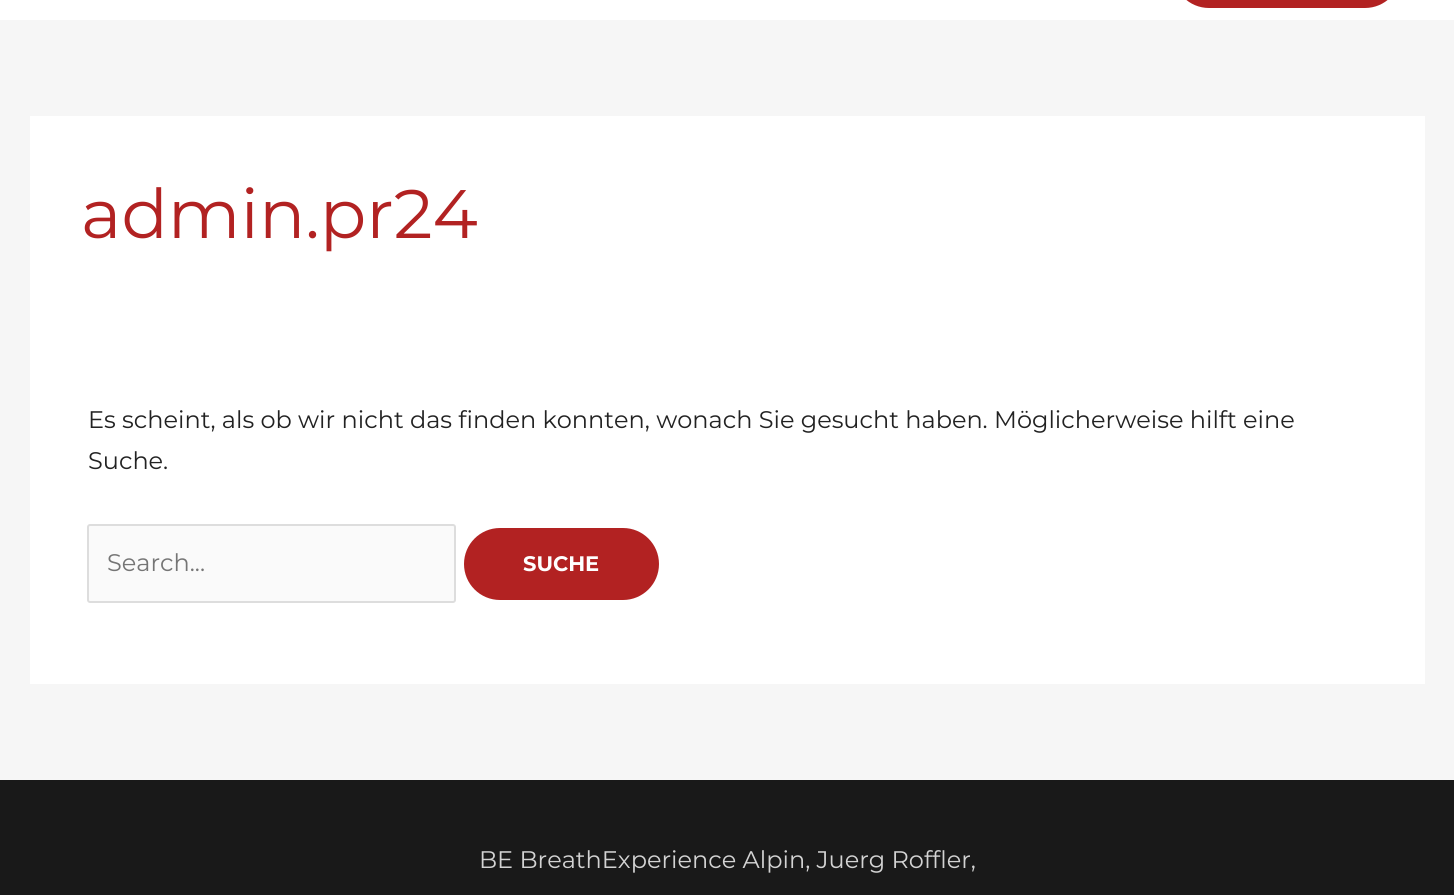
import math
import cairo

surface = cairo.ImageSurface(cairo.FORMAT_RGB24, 1454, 895)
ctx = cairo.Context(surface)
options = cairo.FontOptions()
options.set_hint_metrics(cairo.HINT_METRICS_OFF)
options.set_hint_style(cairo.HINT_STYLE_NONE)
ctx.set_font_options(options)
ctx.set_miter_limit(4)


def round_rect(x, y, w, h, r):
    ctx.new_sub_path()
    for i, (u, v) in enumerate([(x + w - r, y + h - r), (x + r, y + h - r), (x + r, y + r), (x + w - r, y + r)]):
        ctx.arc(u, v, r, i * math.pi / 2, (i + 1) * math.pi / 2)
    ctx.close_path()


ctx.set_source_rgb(0.961, 0.961, 0.961)
ctx.paint()
ctx.set_source_rgb(1, 1, 1)
ctx.rectangle(0, 0, 1454, 20)
ctx.fill()
ctx.set_source_rgb(0.698, 0.133, 0.133)
round_rect(1173, -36, 228, 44, 36)
ctx.fill()
ctx.set_source_rgb(1, 1, 1)
ctx.rectangle(30, 116, 1395, 568)
ctx.fill()
ctx.select_font_face("Montserrat")
ctx.set_font_size(68.5)
ctx.set_source_rgb(0.698, 0.133, 0.133)
ctx.move_to(81, 238)
ctx.show_text("admin.pr24")
ctx.set_font_size(24)
ctx.set_source_rgb(0.133, 0.133, 0.133)
ctx.move_to(88, 428)
ctx.show_text("Es scheint, als ob wir nicht das finden konnten, wonach Sie gesucht haben. Möglicherweise hilft eine")
ctx.move_to(88, 469)
ctx.show_text("Suche.")
ctx.set_source_rgb(0.98, 0.98, 0.98)
round_rect(88, 525, 367, 77, 2)
ctx.fill_preserve()
ctx.set_source_rgb(0.867, 0.867, 0.867)
ctx.stroke()
ctx.set_source_rgb(0.459, 0.459, 0.459)
ctx.move_to(107, 571)
ctx.show_text("Search...")
ctx.set_source_rgb(0.698, 0.133, 0.133)
round_rect(464, 528, 195, 72, 36)
ctx.fill()
ctx.select_font_face("Montserrat", cairo.FONT_SLANT_NORMAL, cairo.FONT_WEIGHT_BOLD)
ctx.set_font_size(21)
ctx.set_source_rgb(1, 1, 1)
ctx.move_to(523, 571)
ctx.show_text("SUCHE")
ctx.set_source_rgb(0.098, 0.098, 0.098)
ctx.rectangle(0, 780, 1454, 115)
ctx.fill()
ctx.select_font_face("Montserrat")
ctx.set_font_size(24)
ctx.set_source_rgb(0.827, 0.827, 0.827)
ctx.move_to(479, 868)
ctx.show_text("BE BreathExperience Alpin, Juerg Roffler,")
surface.write_to_png("page.png")
